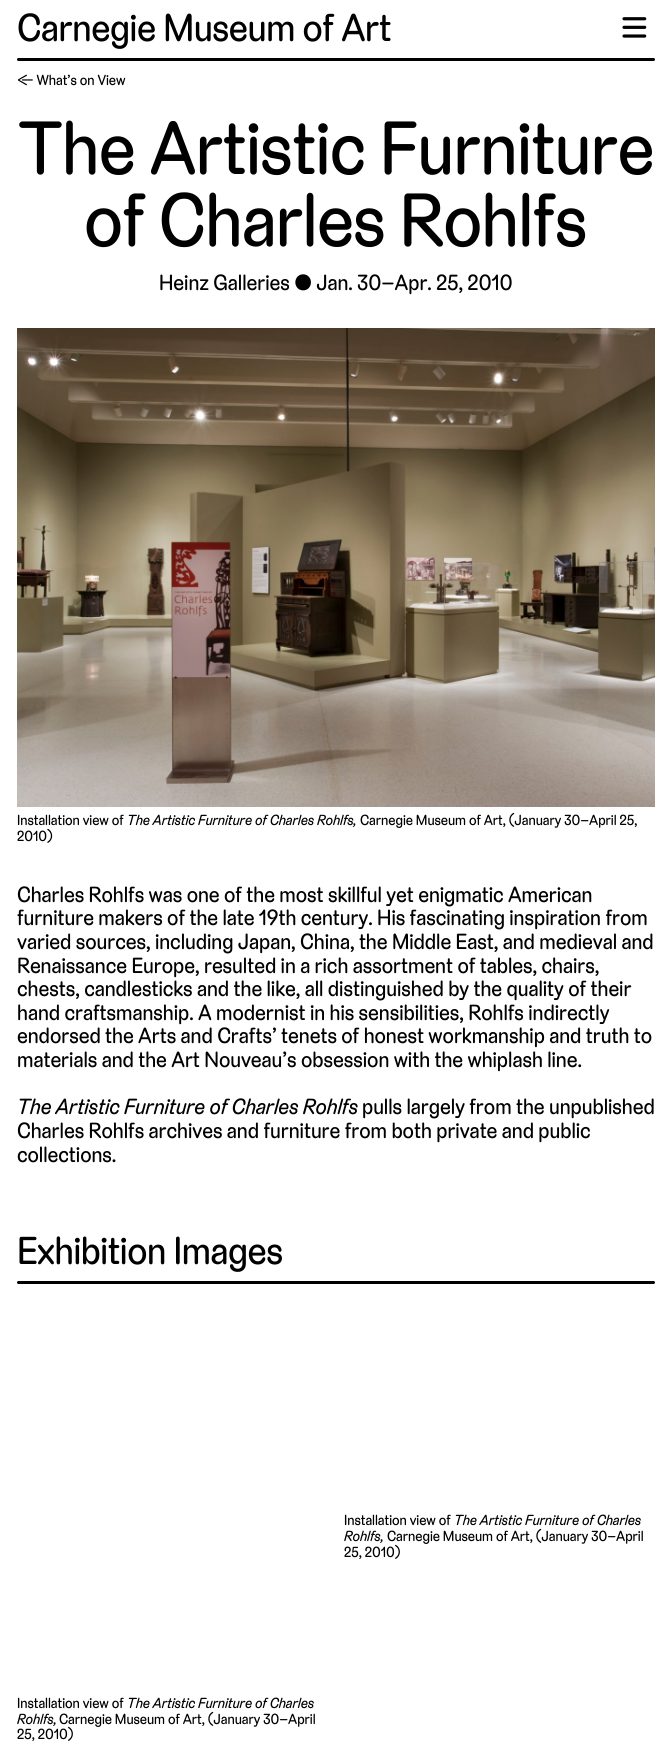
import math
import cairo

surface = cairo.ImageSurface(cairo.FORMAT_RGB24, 672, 1755)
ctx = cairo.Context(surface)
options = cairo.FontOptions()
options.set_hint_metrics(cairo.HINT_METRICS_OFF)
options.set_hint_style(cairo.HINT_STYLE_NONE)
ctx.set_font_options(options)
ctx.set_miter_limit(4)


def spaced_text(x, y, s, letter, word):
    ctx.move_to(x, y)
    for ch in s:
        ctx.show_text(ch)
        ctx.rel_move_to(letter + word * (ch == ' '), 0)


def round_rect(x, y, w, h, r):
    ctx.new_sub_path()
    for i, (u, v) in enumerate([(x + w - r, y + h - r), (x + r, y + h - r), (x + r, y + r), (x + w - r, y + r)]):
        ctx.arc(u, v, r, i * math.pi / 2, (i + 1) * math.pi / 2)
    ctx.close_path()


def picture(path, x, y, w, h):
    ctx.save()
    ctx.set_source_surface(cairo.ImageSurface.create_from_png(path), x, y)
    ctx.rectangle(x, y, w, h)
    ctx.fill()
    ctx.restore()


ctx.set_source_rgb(1, 1, 1)
ctx.paint()
ctx.select_font_face("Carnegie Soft")
ctx.set_font_size(37.25)
ctx.set_source_rgb(0, 0, 0)
spaced_text(17, 41, "Carnegie Museum of Art", -0.4, 0)
round_rect(17, 58, 638, 3, 1.5)
ctx.fill()
spaced_text(621, 41, "☰", -0.4, 0)
ctx.set_font_size(14)
spaced_text(17, 85, "← What’s on View", -0.05, 0)
ctx.set_font_size(72)
spaced_text(18, 174, "The Artistic Furniture", -0.75, 0)
spaced_text(84, 246, "of Charles Rohlfs", -0.75, 0)
ctx.set_font_size(21)
spaced_text(159, 290, "Heinz Galleries ⬤ Jan. 30–Apr. 25, 2010", -0.05, 0)
picture("img1.png", 17, 328, 638, 479)
ctx.set_font_size(14)
spaced_text(17, 825, "Installation view of", -0.05, 0)
ctx.select_font_face("Carnegie Soft", cairo.FONT_SLANT_ITALIC)
spaced_text(127, 825, "The Artistic Furniture of Charles Rohlfs,", -0.05, 0)
ctx.select_font_face("Carnegie Soft")
spaced_text(360, 825, "Carnegie Museum of Art, (January 30–April 25,", -0.05, 0)
spaced_text(17, 841, "2010)", -0.05, 0)
ctx.set_font_size(21)
spaced_text(17, 902, "Charles Rohlfs was one of the most skillful yet enigmatic American", -0.05, 0)
spaced_text(17, 925, "furniture makers of the late 19th century. His fascinating inspiration from", -0.05, 0)
spaced_text(17, 949, "varied sources, including Japan, China, the Middle East, and medieval and", -0.05, 0)
spaced_text(17, 973, "Renaissance Europe, resulted in a rich assortment of tables, chairs,", -0.05, 0)
spaced_text(17, 996, "chests, candlesticks and the like, all distinguished by the quality of their", -0.05, 0)
spaced_text(17, 1020, "hand craftsmanship. A modernist in his sensibilities, Rohlfs indirectly", -0.05, 0)
spaced_text(17, 1043, "endorsed the Arts and Crafts’ tenets of honest workmanship and truth to", -0.05, 0)
spaced_text(17, 1067, "materials and the Art Nouveau’s obsession with the whiplash line.", -0.05, 0)
ctx.select_font_face("Carnegie Soft", cairo.FONT_SLANT_ITALIC)
spaced_text(17, 1114, "The Artistic Furniture of Charles Rohlfs", -0.05, 0)
ctx.select_font_face("Carnegie Soft")
spaced_text(362, 1114, "pulls largely from the unpublished", -0.05, 0)
spaced_text(17, 1138, "Charles Rohlfs archives and furniture from both private and public", -0.05, 0)
spaced_text(17, 1162, "collections.", -0.05, 0)
ctx.set_font_size(37.25)
spaced_text(17, 1264, "Exhibition Images", -0.4, 0)
round_rect(17, 1281, 638, 3, 1.5)
ctx.fill()
ctx.set_font_size(14)
spaced_text(344, 1525, "Installation view of", -0.05, 0)
ctx.select_font_face("Carnegie Soft", cairo.FONT_SLANT_ITALIC)
spaced_text(454, 1525, "The Artistic Furniture of Charles", -0.05, 0)
spaced_text(344, 1541, "Rohlfs,", -0.05, 0)
ctx.select_font_face("Carnegie Soft")
spaced_text(387, 1541, "Carnegie Museum of Art, (January 30–April", -0.05, 0)
spaced_text(344, 1557, "25, 2010)", -0.05, 0)
spaced_text(17, 1708, "Installation view of", -0.05, 0)
ctx.select_font_face("Carnegie Soft", cairo.FONT_SLANT_ITALIC)
spaced_text(127, 1708, "The Artistic Furniture of Charles", -0.05, 0)
spaced_text(17, 1724, "Rohlfs,", -0.05, 0)
ctx.select_font_face("Carnegie Soft")
spaced_text(59, 1724, "Carnegie Museum of Art, (January 30–April", -0.05, 0)
spaced_text(17, 1739, "25, 2010)", -0.05, 0)
surface.write_to_png("page.png")
